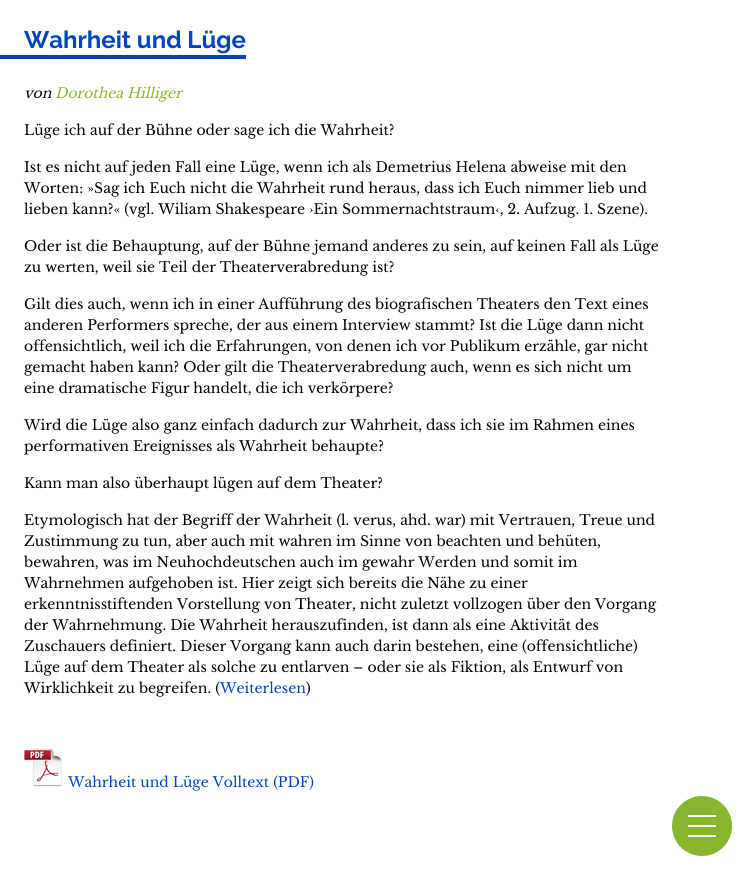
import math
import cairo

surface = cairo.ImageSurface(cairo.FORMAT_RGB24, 756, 880)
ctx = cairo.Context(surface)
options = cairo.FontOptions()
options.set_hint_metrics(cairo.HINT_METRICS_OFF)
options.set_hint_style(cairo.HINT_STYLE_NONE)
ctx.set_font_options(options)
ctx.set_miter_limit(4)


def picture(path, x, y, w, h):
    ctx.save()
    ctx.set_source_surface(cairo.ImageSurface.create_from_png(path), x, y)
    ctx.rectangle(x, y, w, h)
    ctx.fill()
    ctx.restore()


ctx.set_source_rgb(1, 1, 1)
ctx.paint()
ctx.set_source_rgb(0, 0.271, 0.741)
ctx.rectangle(0, 55, 246, 4)
ctx.fill()
ctx.select_font_face("Raleway", cairo.FONT_SLANT_NORMAL, cairo.FONT_WEIGHT_BOLD)
ctx.set_font_size(24)
ctx.move_to(24, 48)
ctx.show_text("Wahrheit und Lüge")
ctx.select_font_face("Libre Baskerville", cairo.FONT_SLANT_ITALIC)
ctx.set_font_size(14)
ctx.set_source_rgb(0, 0, 0)
ctx.move_to(24, 98)
ctx.show_text("von")
ctx.set_source_rgb(0.525, 0.71, 0.18)
ctx.move_to(55, 98)
ctx.show_text("Dorothea Hilliger")
ctx.select_font_face("Libre Baskerville")
ctx.set_source_rgb(0, 0, 0)
ctx.move_to(24, 135)
ctx.show_text("Lüge ich auf der Bühne oder sage ich die Wahrheit?")
ctx.move_to(24, 172)
ctx.show_text("Ist es nicht auf jeden Fall eine Lüge, wenn ich als Demetrius Helena abweise mit den")
ctx.move_to(24, 193)
ctx.show_text("Worten: »Sag ich Euch nicht die Wahrheit rund heraus, dass ich Euch nimmer lieb und")
ctx.move_to(24, 214)
ctx.show_text("lieben kann?« (vgl. Wiliam Shakespeare ›Ein Sommernachtstraum‹, 2. Aufzug. 1. Szene).")
ctx.move_to(24, 251)
ctx.show_text("Oder ist die Behauptung, auf der Bühne jemand anderes zu sein, auf keinen Fall als Lüge")
ctx.move_to(24, 272)
ctx.show_text("zu werten, weil sie Teil der Theaterverabredung ist?")
ctx.move_to(24, 309)
ctx.show_text("Gilt dies auch, wenn ich in einer Aufführung des biografischen Theaters den Text eines")
ctx.move_to(24, 330)
ctx.show_text("anderen Performers spreche, der aus einem Interview stammt? Ist die Lüge dann nicht")
ctx.move_to(24, 351)
ctx.show_text("offensichtlich, weil ich die Erfahrungen, von denen ich vor Publikum erzähle, gar nicht")
ctx.move_to(24, 372)
ctx.show_text("gemacht haben kann? Oder gilt die Theaterverabredung auch, wenn es sich nicht um")
ctx.move_to(24, 393)
ctx.show_text("eine dramatische Figur handelt, die ich verkörpere?")
ctx.move_to(24, 430)
ctx.show_text("Wird die Lüge also ganz einfach dadurch zur Wahrheit, dass ich sie im Rahmen eines")
ctx.move_to(24, 451)
ctx.show_text("performativen Ereignisses als Wahrheit behaupte?")
ctx.move_to(24, 488)
ctx.show_text("Kann man also überhaupt lügen auf dem Theater?")
ctx.move_to(24, 525)
ctx.show_text("Etymologisch hat der Begriff der Wahrheit (l. verus, ahd. war) mit Vertrauen, Treue und")
ctx.move_to(24, 546)
ctx.show_text("Zustimmung zu tun, aber auch mit wahren im Sinne von beachten und behüten,")
ctx.move_to(24, 567)
ctx.show_text("bewahren, was im Neuhochdeutschen auch im gewahr Werden und somit im")
ctx.move_to(24, 588)
ctx.show_text("Wahrnehmen aufgehoben ist. Hier zeigt sich bereits die Nähe zu einer")
ctx.move_to(24, 609)
ctx.show_text("erkenntnisstiftenden Vorstellung von Theater, nicht zuletzt vollzogen über den Vorgang")
ctx.move_to(24, 630)
ctx.show_text("der Wahrnehmung. Die Wahrheit herauszufinden, ist dann als eine Aktivität des")
ctx.move_to(24, 651)
ctx.show_text("Zuschauers definiert. Dieser Vorgang kann auch darin bestehen, eine (offensichtliche)")
ctx.move_to(24, 672)
ctx.show_text("Lüge auf dem Theater als solche zu entlarven – oder sie als Fiktion, als Entwurf von")
ctx.move_to(24, 693)
ctx.show_text("Wirklichkeit zu begreifen. (")
ctx.set_source_rgb(0, 0.271, 0.741)
ctx.move_to(220, 693)
ctx.show_text("Weiterlesen")
ctx.set_source_rgb(0, 0, 0)
ctx.move_to(306, 693)
ctx.show_text(")")
picture("img1.png", 24, 748, 38, 39)
ctx.set_source_rgb(0, 0.271, 0.741)
ctx.move_to(68, 787)
ctx.show_text("Wahrheit und Lüge Volltext (PDF)")
ctx.set_source_rgb(0.525, 0.71, 0.18)
ctx.new_path()
ctx.arc(702, 826, 30, 0, 2 * math.pi)
ctx.fill()
ctx.set_source_rgb(1, 1, 1)
ctx.rectangle(688, 825, 28, 2)
ctx.fill()
ctx.rectangle(688, 815, 28, 2)
ctx.fill()
ctx.rectangle(688, 835, 28, 2)
ctx.fill()
surface.write_to_png("page.png")
